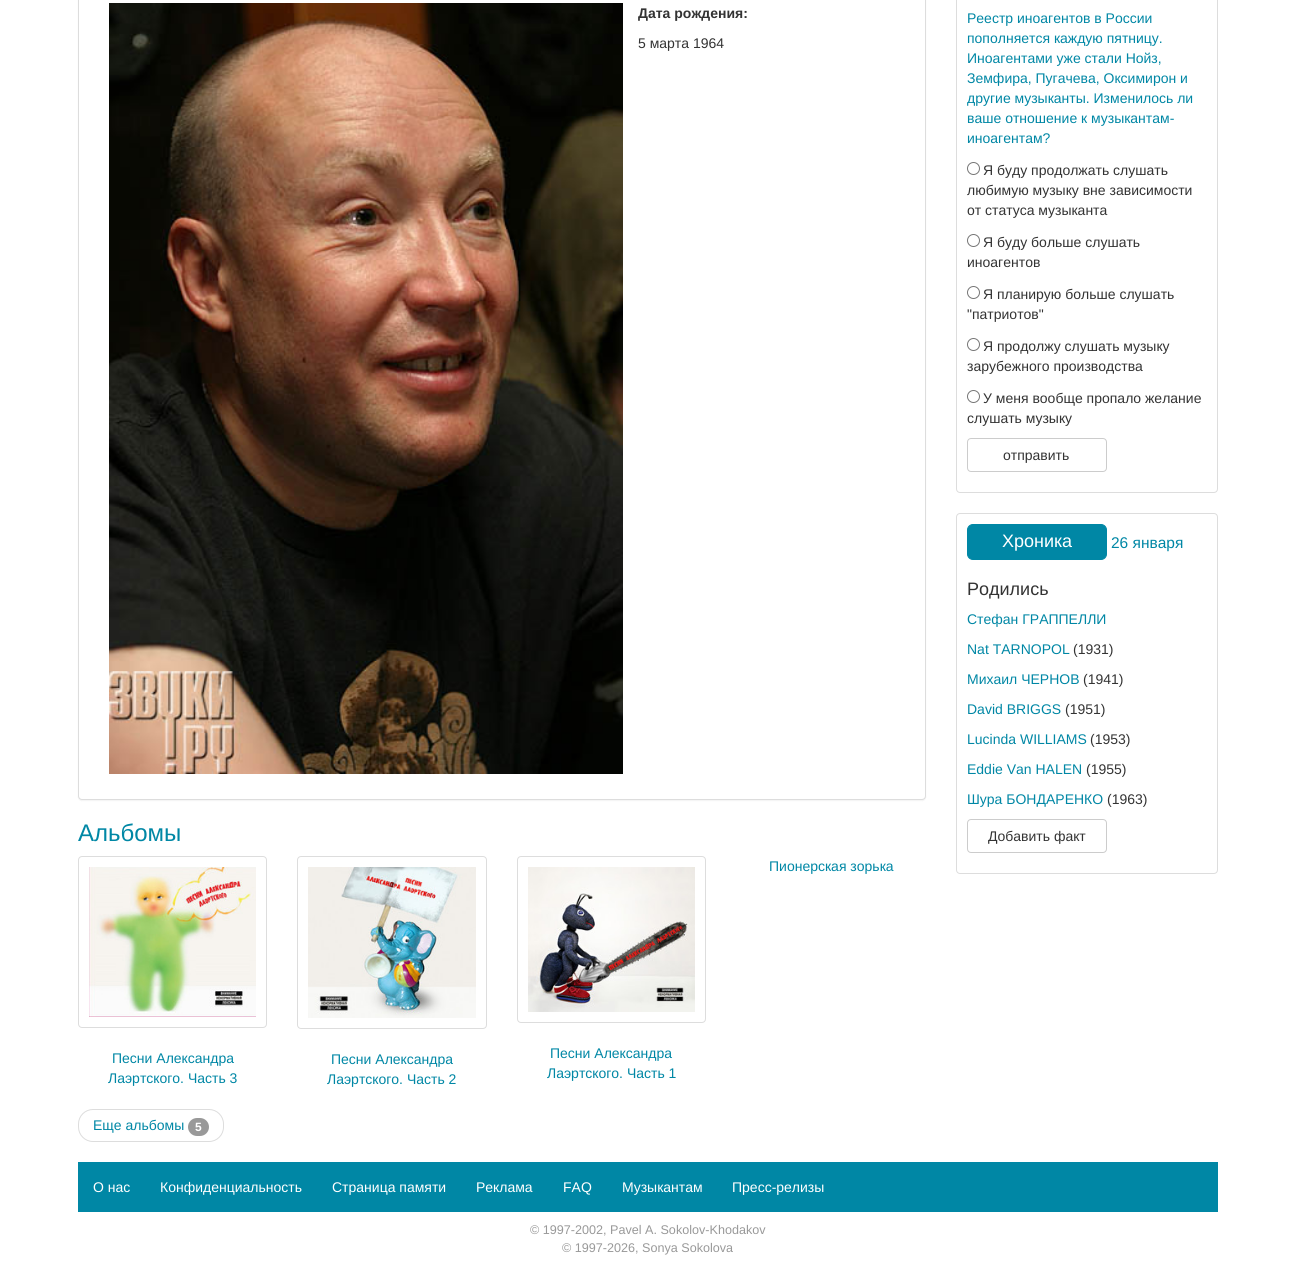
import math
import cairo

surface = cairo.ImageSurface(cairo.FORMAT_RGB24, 1296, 1268)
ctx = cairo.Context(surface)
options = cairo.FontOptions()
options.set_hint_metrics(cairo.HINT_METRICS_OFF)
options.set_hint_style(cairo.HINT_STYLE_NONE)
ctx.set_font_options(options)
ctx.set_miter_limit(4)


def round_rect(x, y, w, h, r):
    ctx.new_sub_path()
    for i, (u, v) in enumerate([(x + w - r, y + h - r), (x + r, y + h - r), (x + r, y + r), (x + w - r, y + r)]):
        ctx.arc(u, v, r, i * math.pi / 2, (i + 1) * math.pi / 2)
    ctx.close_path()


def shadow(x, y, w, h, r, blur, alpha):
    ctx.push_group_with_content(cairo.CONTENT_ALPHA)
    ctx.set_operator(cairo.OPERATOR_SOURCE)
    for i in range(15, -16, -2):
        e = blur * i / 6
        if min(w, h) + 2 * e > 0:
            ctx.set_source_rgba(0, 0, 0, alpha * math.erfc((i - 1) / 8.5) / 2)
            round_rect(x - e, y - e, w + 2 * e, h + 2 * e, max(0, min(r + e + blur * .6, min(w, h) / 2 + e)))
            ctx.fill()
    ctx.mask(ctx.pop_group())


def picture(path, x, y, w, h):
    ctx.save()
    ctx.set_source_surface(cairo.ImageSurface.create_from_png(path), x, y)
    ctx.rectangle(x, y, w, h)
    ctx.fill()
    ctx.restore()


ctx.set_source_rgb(1, 1, 1)
ctx.paint()
ctx.set_source_rgb(0, 0, 0)
shadow(78, -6, 848, 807, 4, 0.5, 0.05)
ctx.set_source_rgb(1, 1, 1)
round_rect(78.5, -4.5, 847, 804, 3.5)
ctx.fill_preserve()
ctx.set_source_rgb(0.867, 0.867, 0.867)
ctx.set_line_width(1)
ctx.stroke()
picture("img1.png", 109, 3, 514, 771)
ctx.select_font_face("Liberation Sans", cairo.FONT_SLANT_NORMAL, cairo.FONT_WEIGHT_BOLD)
ctx.set_font_size(14)
ctx.set_source_rgb(0.2, 0.2, 0.2)
ctx.move_to(638, 18)
ctx.show_text("Дата рождения:")
ctx.select_font_face("Liberation Sans")
ctx.move_to(638, 48)
ctx.show_text("5 марта 1964")
ctx.set_font_size(24)
ctx.set_source_rgb(0, 0.529, 0.647)
ctx.move_to(78, 841)
ctx.show_text("Альбомы")
ctx.set_font_size(14)
ctx.move_to(769, 871)
ctx.show_text("Пионерская зорька")
round_rect(78.5, 856.5, 188, 171, 3.5)
ctx.set_source_rgb(0.867, 0.867, 0.867)
ctx.stroke()
picture("img2.png", 89, 867, 167, 150)
ctx.set_source_rgb(0, 0.529, 0.647)
ctx.move_to(112, 1063)
ctx.show_text("Песни Александра")
ctx.move_to(108, 1083)
ctx.show_text("Лаэртского. Часть 3")
round_rect(297.5, 856.5, 189, 172, 3.5)
ctx.set_source_rgb(0.867, 0.867, 0.867)
ctx.stroke()
picture("img3.png", 308, 867, 168, 151)
ctx.set_source_rgb(0, 0.529, 0.647)
ctx.move_to(331, 1064)
ctx.show_text("Песни Александра")
ctx.move_to(327, 1084)
ctx.show_text("Лаэртского. Часть 2")
round_rect(517.5, 856.5, 188, 166, 3.5)
ctx.set_source_rgb(0.867, 0.867, 0.867)
ctx.stroke()
picture("img4.png", 528, 867, 167, 145)
ctx.set_source_rgb(0, 0.529, 0.647)
ctx.move_to(550, 1058)
ctx.show_text("Песни Александра")
ctx.move_to(547, 1078)
ctx.show_text("Лаэртского. Часть 1")
round_rect(78.5, 1109.5, 145, 32, 14.5)
ctx.set_source_rgb(0.867, 0.867, 0.867)
ctx.stroke()
ctx.set_source_rgb(0, 0.529, 0.647)
ctx.move_to(93, 1130)
ctx.show_text("Еще альбомы")
ctx.set_source_rgb(0.6, 0.6, 0.6)
round_rect(188, 1118, 21, 18, 9)
ctx.fill()
ctx.select_font_face("Liberation Sans", cairo.FONT_SLANT_NORMAL, cairo.FONT_WEIGHT_BOLD)
ctx.set_font_size(12)
ctx.set_source_rgb(1, 1, 1)
ctx.move_to(195, 1131)
ctx.show_text("5")
round_rect(956.5, -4.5, 261, 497, 3.5)
ctx.set_source_rgb(0.867, 0.867, 0.867)
ctx.stroke()
ctx.select_font_face("Liberation Sans")
ctx.set_font_size(14)
ctx.set_source_rgb(0, 0.529, 0.647)
ctx.move_to(967, 23)
ctx.show_text("Реестр иноагентов в России")
ctx.move_to(967, 43)
ctx.show_text("пополняется каждую пятницу.")
ctx.move_to(967, 63)
ctx.show_text("Иноагентами уже стали Нойз,")
ctx.move_to(967, 83)
ctx.show_text("Земфира, Пугачева, Оксимирон и")
ctx.move_to(967, 103)
ctx.show_text("другие музыканты. Изменилось ли")
ctx.move_to(967, 123)
ctx.show_text("ваше отношение к музыкантам-")
ctx.move_to(967, 143)
ctx.show_text("иноагентам?")
ctx.new_path()
ctx.arc(973.5, 168.5, 6, 0, 2 * math.pi)
ctx.set_source_rgb(0.463, 0.463, 0.463)
ctx.stroke()
ctx.set_source_rgb(0.2, 0.2, 0.2)
ctx.move_to(983, 175)
ctx.show_text("Я буду продолжать слушать")
ctx.move_to(967, 195)
ctx.show_text("любимую музыку вне зависимости")
ctx.move_to(967, 215)
ctx.show_text("от статуса музыканта")
ctx.new_path()
ctx.arc(973.5, 240.5, 6, 0, 2 * math.pi)
ctx.set_source_rgb(0.463, 0.463, 0.463)
ctx.stroke()
ctx.set_source_rgb(0.2, 0.2, 0.2)
ctx.move_to(983, 247)
ctx.show_text("Я буду больше слушать")
ctx.move_to(967, 267)
ctx.show_text("иноагентов")
ctx.new_path()
ctx.arc(973.5, 292.5, 6, 0, 2 * math.pi)
ctx.set_source_rgb(0.463, 0.463, 0.463)
ctx.stroke()
ctx.set_source_rgb(0.2, 0.2, 0.2)
ctx.move_to(983, 299)
ctx.show_text("Я планирую больше слушать")
ctx.move_to(967, 319)
ctx.show_text("\"патриотов\"")
ctx.new_path()
ctx.arc(973.5, 344.5, 6, 0, 2 * math.pi)
ctx.set_source_rgb(0.463, 0.463, 0.463)
ctx.stroke()
ctx.set_source_rgb(0.2, 0.2, 0.2)
ctx.move_to(983, 351)
ctx.show_text("Я продолжу слушать музыку")
ctx.move_to(967, 371)
ctx.show_text("зарубежного производства")
ctx.new_path()
ctx.arc(973.5, 396.5, 6, 0, 2 * math.pi)
ctx.set_source_rgb(0.463, 0.463, 0.463)
ctx.stroke()
ctx.set_source_rgb(0.2, 0.2, 0.2)
ctx.move_to(983, 403)
ctx.show_text("У меня вообще пропало желание")
ctx.move_to(967, 423)
ctx.show_text("слушать музыку")
round_rect(967.5, 438.5, 139, 33, 3.5)
ctx.set_source_rgb(0.8, 0.8, 0.8)
ctx.stroke()
ctx.set_source_rgb(0.2, 0.2, 0.2)
ctx.move_to(1003, 460)
ctx.show_text("отправить")
round_rect(956.5, 513.5, 261, 360, 3.5)
ctx.set_source_rgb(0.867, 0.867, 0.867)
ctx.stroke()
ctx.set_source_rgb(0, 0.529, 0.647)
round_rect(967.5, 524.5, 139, 35, 5.5)
ctx.fill_preserve()
ctx.stroke()
ctx.set_font_size(18)
ctx.set_source_rgb(1, 1, 1)
ctx.move_to(1002, 547)
ctx.show_text("Хроника")
ctx.set_font_size(15.5)
ctx.set_source_rgb(0, 0.529, 0.647)
ctx.move_to(1111, 548)
ctx.show_text("26 января")
ctx.set_font_size(18)
ctx.set_source_rgb(0.2, 0.2, 0.2)
ctx.move_to(967, 595)
ctx.show_text("Родились")
ctx.set_font_size(14)
ctx.set_source_rgb(0, 0.529, 0.647)
ctx.move_to(967, 624)
ctx.show_text("Стефан ГРАППЕЛЛИ")
ctx.move_to(967, 654)
ctx.show_text("Nat TARNOPOL")
ctx.set_source_rgb(0.2, 0.2, 0.2)
ctx.move_to(1073, 654)
ctx.show_text("(1931)")
ctx.set_source_rgb(0, 0.529, 0.647)
ctx.move_to(967, 684)
ctx.show_text("Михаил ЧЕРНОВ")
ctx.set_source_rgb(0.2, 0.2, 0.2)
ctx.move_to(1083, 684)
ctx.show_text("(1941)")
ctx.set_source_rgb(0, 0.529, 0.647)
ctx.move_to(967, 714)
ctx.show_text("David BRIGGS")
ctx.set_source_rgb(0.2, 0.2, 0.2)
ctx.move_to(1065, 714)
ctx.show_text("(1951)")
ctx.set_source_rgb(0, 0.529, 0.647)
ctx.move_to(967, 744)
ctx.show_text("Lucinda WILLIAMS")
ctx.set_source_rgb(0.2, 0.2, 0.2)
ctx.move_to(1090, 744)
ctx.show_text("(1953)")
ctx.set_source_rgb(0, 0.529, 0.647)
ctx.move_to(967, 774)
ctx.show_text("Eddie Van HALEN")
ctx.set_source_rgb(0.2, 0.2, 0.2)
ctx.move_to(1086, 774)
ctx.show_text("(1955)")
ctx.set_source_rgb(0, 0.529, 0.647)
ctx.move_to(967, 804)
ctx.show_text("Шура БОНДАРЕНКО")
ctx.set_source_rgb(0.2, 0.2, 0.2)
ctx.move_to(1107, 804)
ctx.show_text("(1963)")
round_rect(967.5, 819.5, 139, 33, 3.5)
ctx.set_source_rgb(0.8, 0.8, 0.8)
ctx.stroke()
ctx.set_source_rgb(0.2, 0.2, 0.2)
ctx.move_to(988, 841)
ctx.show_text("Добавить факт")
ctx.set_source_rgb(0, 0.529, 0.647)
ctx.rectangle(78, 1162, 1140, 50)
ctx.fill()
ctx.set_source_rgb(1, 1, 1)
ctx.move_to(93, 1192)
ctx.show_text("О нас")
ctx.move_to(160, 1192)
ctx.show_text("Конфиденциальность")
ctx.move_to(332, 1192)
ctx.show_text("Страница памяти")
ctx.move_to(476, 1192)
ctx.show_text("Реклама")
ctx.move_to(563, 1192)
ctx.show_text("FAQ")
ctx.move_to(622, 1192)
ctx.show_text("Музыкантам")
ctx.move_to(732, 1192)
ctx.show_text("Пресс-релизы")
ctx.set_font_size(12.6)
ctx.set_source_rgb(0.6, 0.6, 0.6)
ctx.move_to(530, 1234)
ctx.show_text("© 1997-2002, Pavel A. Sokolov-Khodakov")
ctx.move_to(562, 1252)
ctx.show_text("© 1997-2026, Sonya Sokolova")
surface.write_to_png("page.png")
